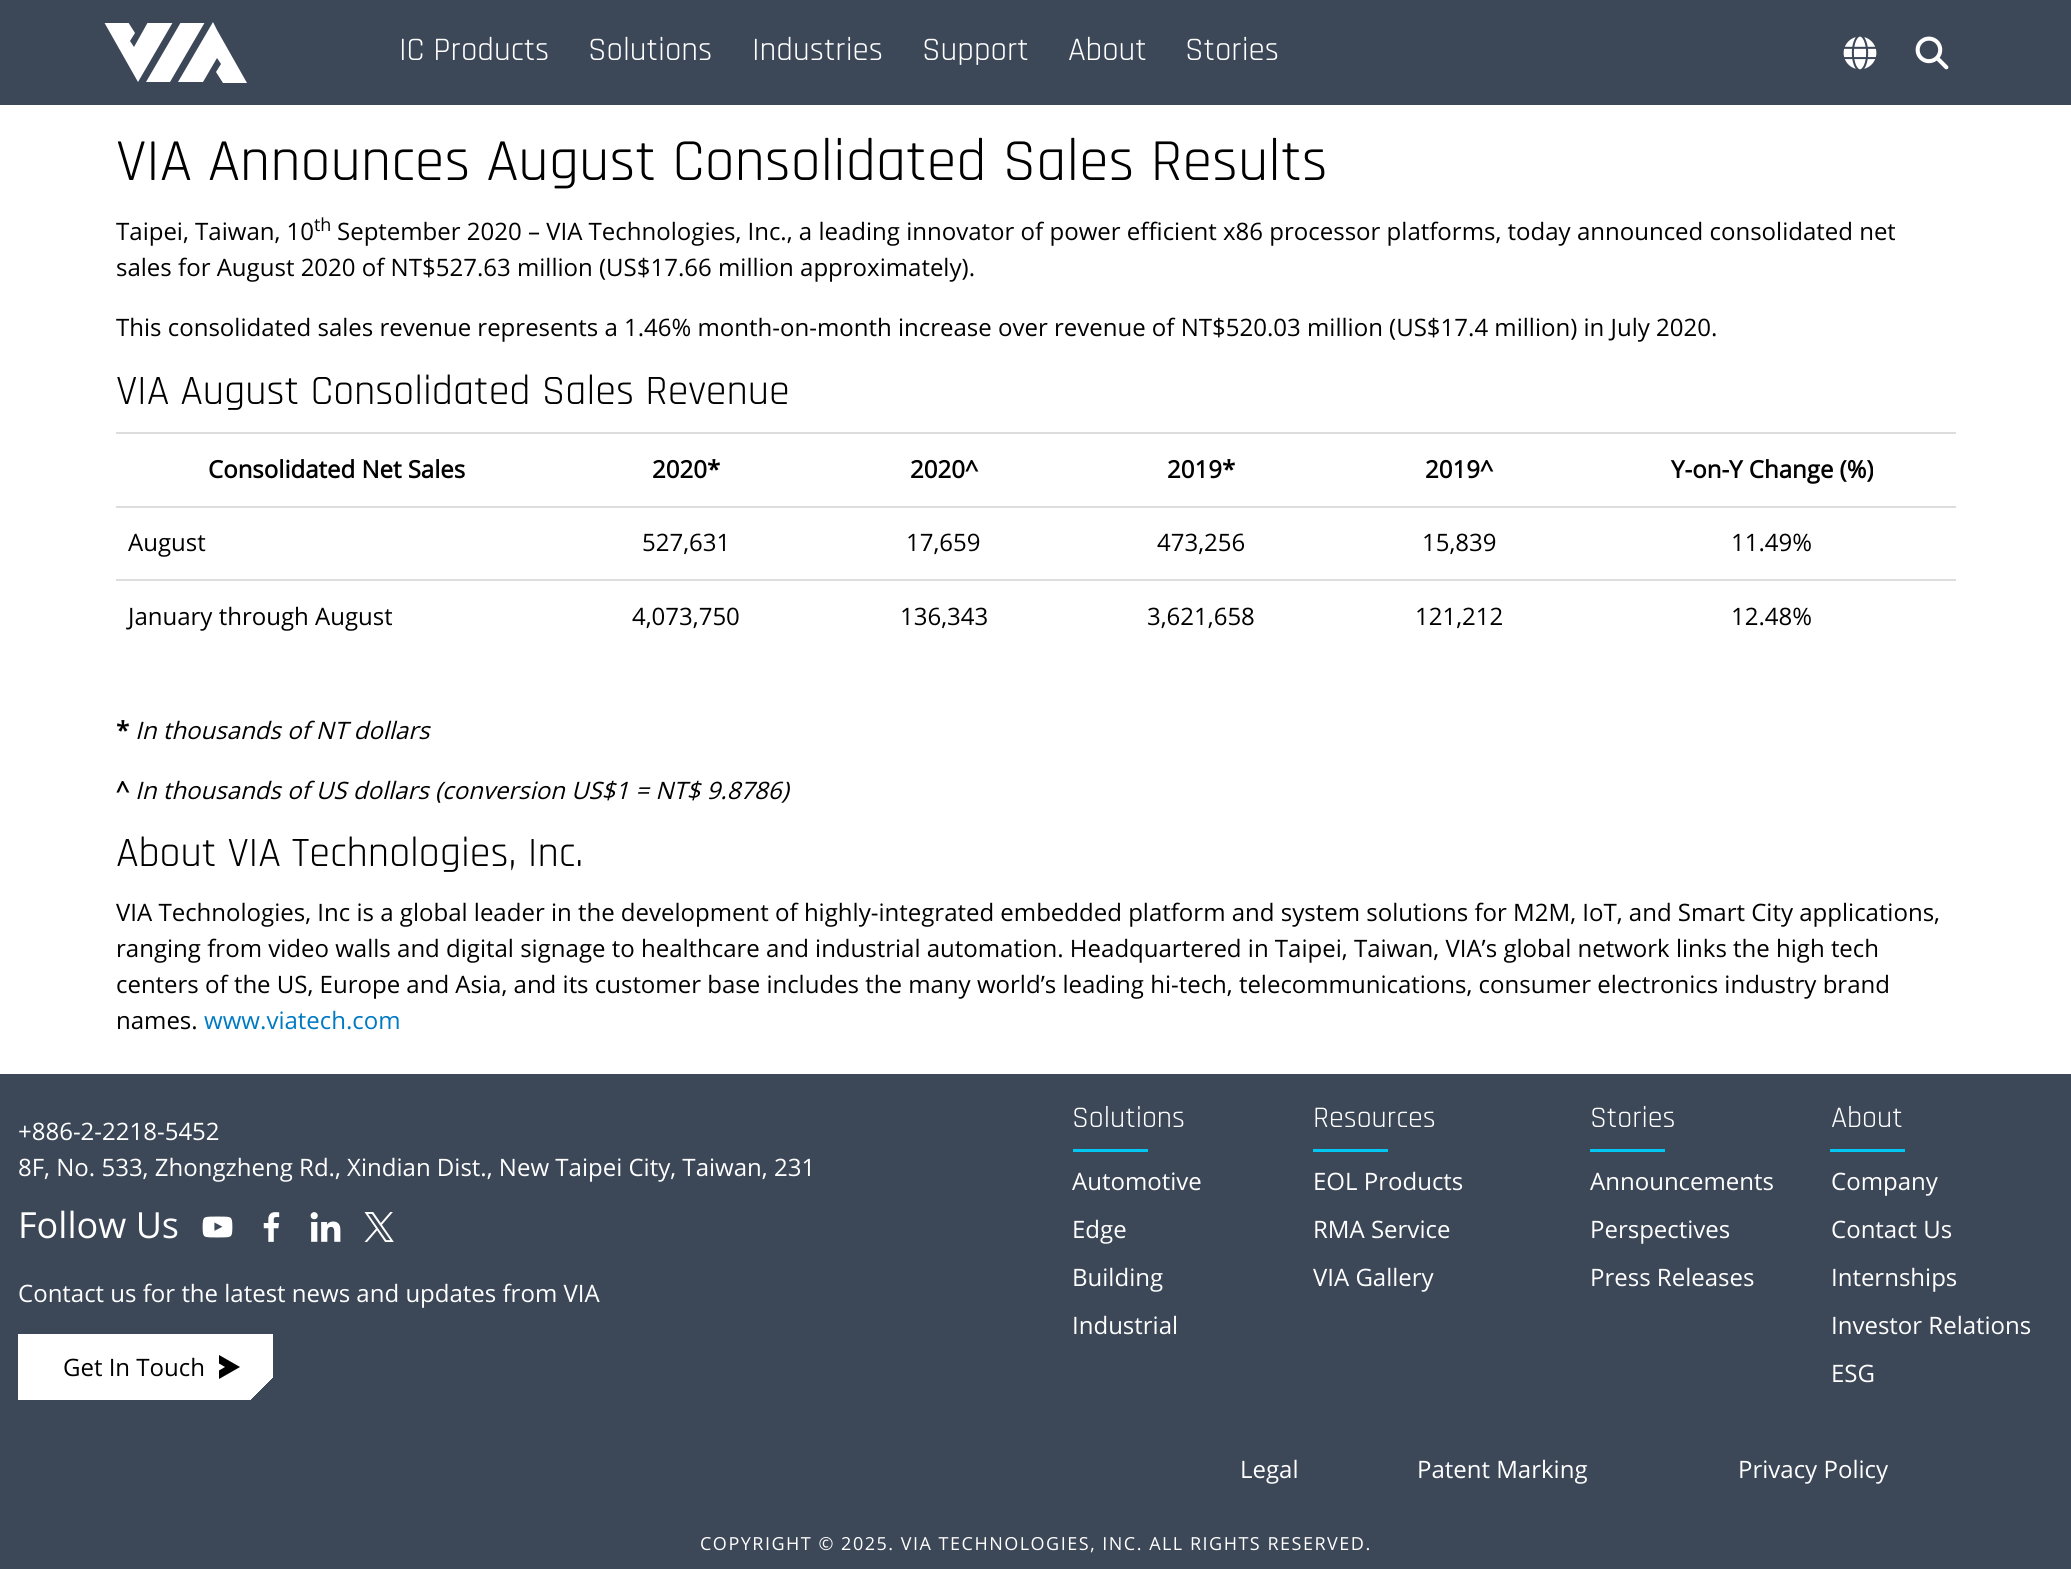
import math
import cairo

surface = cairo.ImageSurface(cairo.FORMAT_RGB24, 2071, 1569)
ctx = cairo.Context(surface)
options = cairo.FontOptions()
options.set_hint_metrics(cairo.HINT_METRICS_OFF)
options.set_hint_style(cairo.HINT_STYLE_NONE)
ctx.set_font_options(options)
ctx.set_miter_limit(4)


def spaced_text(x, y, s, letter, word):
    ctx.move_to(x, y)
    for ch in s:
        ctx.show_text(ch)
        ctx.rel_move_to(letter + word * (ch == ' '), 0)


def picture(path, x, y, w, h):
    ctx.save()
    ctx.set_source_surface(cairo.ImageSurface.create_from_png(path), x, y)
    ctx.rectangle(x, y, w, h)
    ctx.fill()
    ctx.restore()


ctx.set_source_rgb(1, 1, 1)
ctx.paint()
ctx.set_source_rgb(0.235, 0.278, 0.345)
ctx.rectangle(0, 0, 2071, 105)
ctx.fill()
ctx.save()
ctx.rectangle(104, 23, 144, 60)
ctx.clip()
ctx.set_source_rgb(1, 1, 1)
ctx.new_path()
ctx.move_to(148, 22)
ctx.line_to(134, 47)
ctx.line_to(130, 41)
ctx.line_to(135, 33)
ctx.line_to(128, 22)
ctx.line_to(104, 22)
ctx.line_to(138, 82)
ctx.line_to(173, 22)
ctx.close_path()
ctx.fill()
ctx.restore()
ctx.set_source_rgb(1, 1, 1)
ctx.new_path()
ctx.move_to(217, 30)
ctx.line_to(213, 22)
ctx.line_to(178, 82)
ctx.line_to(203, 82)
ctx.line_to(217, 58)
ctx.line_to(221, 64)
ctx.line_to(216, 72)
ctx.line_to(223, 83)
ctx.line_to(247, 83)
ctx.close_path()
ctx.fill()
ctx.save()
ctx.rectangle(104, 23, 144, 60)
ctx.clip()
ctx.new_path()
ctx.move_to(181, 22)
ctx.line_to(146, 82)
ctx.line_to(170, 82)
ctx.line_to(205, 22)
ctx.close_path()
ctx.fill()
ctx.restore()
ctx.select_font_face("Rajdhani")
ctx.set_font_size(33)
ctx.move_to(399, 60)
ctx.show_text("IC Products")
ctx.move_to(588, 60)
ctx.show_text("Solutions")
ctx.move_to(752, 60)
ctx.show_text("Industries")
ctx.move_to(922, 60)
ctx.show_text("Support")
ctx.move_to(1068, 60)
ctx.show_text("About")
ctx.move_to(1185, 60)
ctx.show_text("Stories")
picture("img1.png", 1843, 36, 34, 34)
picture("img2.png", 1915, 36, 34, 34)
ctx.set_font_size(60)
ctx.set_source_rgb(0, 0, 0)
ctx.move_to(116, 180)
ctx.show_text("VIA Announces August Consolidated Sales Results")
ctx.select_font_face("Open Sans")
ctx.set_font_size(24)
ctx.move_to(116, 240)
ctx.show_text("Taipei, Taiwan, 10")
ctx.set_font_size(18)
ctx.move_to(314, 231)
ctx.show_text("th")
ctx.set_font_size(24)
ctx.move_to(337, 240)
ctx.show_text("September 2020 – VIA Technologies, Inc., a leading innovator of power efficient x86 processor platforms, today announced consolidated net")
ctx.move_to(116, 276)
ctx.show_text("sales for August 2020 of NT$527.63 million (US$17.66 million approximately).")
ctx.move_to(116, 336)
ctx.show_text("This consolidated sales revenue represents a 1.46% month-on-month increase over revenue of NT$520.03 million (US$17.4 million) in July 2020.")
ctx.select_font_face("Rajdhani")
ctx.set_font_size(42)
ctx.move_to(116, 404)
ctx.show_text("VIA August Consolidated Sales Revenue")
ctx.select_font_face("Open Sans", cairo.FONT_SLANT_NORMAL, cairo.FONT_WEIGHT_BOLD)
ctx.set_font_size(24)
ctx.move_to(208, 478)
ctx.show_text("Consolidated Net Sales")
ctx.move_to(652, 478)
ctx.show_text("2020*")
ctx.move_to(910, 478)
ctx.show_text("2020^")
ctx.move_to(1167, 478)
ctx.show_text("2019*")
ctx.move_to(1425, 478)
ctx.show_text("2019^")
ctx.set_source_rgb(0.867, 0.867, 0.867)
ctx.rectangle(116, 432, 1840, 2)
ctx.fill()
ctx.set_source_rgb(0, 0, 0)
ctx.move_to(1671, 478)
ctx.show_text("Y-on-Y Change (%)")
ctx.select_font_face("Open Sans")
ctx.move_to(128, 551)
ctx.show_text("August")
ctx.move_to(642, 551)
ctx.show_text("527,631")
ctx.move_to(906, 551)
ctx.show_text("17,659")
ctx.move_to(1157, 551)
ctx.show_text("473,256")
ctx.move_to(1422, 551)
ctx.show_text("15,839")
ctx.set_source_rgb(0.867, 0.867, 0.867)
ctx.rectangle(116, 506, 1840, 2)
ctx.fill()
ctx.set_source_rgb(0, 0, 0)
ctx.move_to(1731, 551)
ctx.show_text("11.49%")
ctx.move_to(128, 625)
ctx.show_text("January through August")
ctx.move_to(632, 625)
ctx.show_text("4,073,750")
ctx.move_to(900, 625)
ctx.show_text("136,343")
ctx.move_to(1147, 625)
ctx.show_text("3,621,658")
ctx.move_to(1415, 625)
ctx.show_text("121,212")
ctx.set_source_rgb(0.867, 0.867, 0.867)
ctx.rectangle(116, 579, 1840, 2)
ctx.fill()
ctx.set_source_rgb(0, 0, 0)
ctx.move_to(1731, 625)
ctx.show_text("12.48%")
ctx.select_font_face("Open Sans", cairo.FONT_SLANT_NORMAL, cairo.FONT_WEIGHT_BOLD)
ctx.move_to(116, 739)
ctx.show_text("*")
ctx.select_font_face("Open Sans", cairo.FONT_SLANT_ITALIC)
ctx.move_to(135, 739)
ctx.show_text("In thousands of NT dollars")
ctx.select_font_face("Open Sans", cairo.FONT_SLANT_NORMAL, cairo.FONT_WEIGHT_BOLD)
ctx.move_to(116, 799)
ctx.show_text("^")
ctx.select_font_face("Open Sans", cairo.FONT_SLANT_ITALIC)
ctx.move_to(135, 799)
ctx.show_text("In thousands of US dollars (conversion US$1 = NT$ 9.8786)")
ctx.select_font_face("Rajdhani")
ctx.set_font_size(42)
ctx.move_to(116, 866)
ctx.show_text("About VIA Technologies, Inc.")
ctx.select_font_face("Open Sans")
ctx.set_font_size(24)
ctx.move_to(116, 921)
ctx.show_text("VIA Technologies, Inc is a global leader in the development of highly-integrated embedded platform and system solutions for M2M, IoT, and Smart City applications,")
ctx.move_to(116, 957)
ctx.show_text("ranging from video walls and digital signage to healthcare and industrial automation. Headquartered in Taipei, Taiwan, VIA’s global network links the high tech")
ctx.move_to(116, 993)
ctx.show_text("centers of the US, Europe and Asia, and its customer base includes the many world’s leading hi-tech, telecommunications, consumer electronics industry brand")
ctx.move_to(116, 1029)
ctx.show_text("names.")
ctx.set_source_rgb(0, 0.478, 0.761)
ctx.move_to(204, 1029)
ctx.show_text("www.viatech.com")
ctx.set_source_rgb(0.235, 0.278, 0.345)
ctx.rectangle(0, 1074, 2071, 495)
ctx.fill()
ctx.set_source_rgb(1, 1, 1)
ctx.move_to(18, 1140)
ctx.show_text("+886-2-2218-5452")
ctx.move_to(18, 1176)
ctx.show_text("8F, No. 533, Zhongzheng Rd., Xindian Dist., New Taipei City, Taiwan, 231")
ctx.set_font_size(36)
ctx.move_to(18, 1238)
ctx.show_text("Follow Us")
picture("img3.png", 202, 1216, 31, 22)
picture("img4.png", 263, 1212, 17, 30)
picture("img5.png", 310, 1212, 31, 30)
picture("img6.png", 364, 1212, 30, 30)
ctx.set_font_size(24)
ctx.move_to(18, 1302)
ctx.show_text("Contact us for the latest news and updates from VIA")
gradient = cairo.LinearGradient(226, 1447, 65, 1286)
gradient.add_color_stop_rgba(0.07, 0.235, 0.278, 0.345, 1)
gradient.add_color_stop_rgba(0.07, 1, 1, 1, 1)
ctx.set_source(gradient)
ctx.rectangle(18, 1334, 255, 66)
ctx.fill()
ctx.set_source_rgb(0, 0, 0)
ctx.move_to(63, 1376)
ctx.show_text("Get In Touch")
ctx.new_path()
ctx.move_to(219, 1355)
ctx.line_to(240, 1367)
ctx.line_to(219, 1379)
ctx.line_to(219, 1370.5)
ctx.line_to(225, 1367)
ctx.line_to(219, 1363.5)
ctx.close_path()
ctx.fill()
ctx.select_font_face("Rajdhani")
ctx.set_font_size(30)
ctx.set_source_rgb(1, 1, 1)
ctx.move_to(1072, 1127)
ctx.show_text("Solutions")
ctx.set_source_rgb(0.008, 0.78, 0.949)
ctx.rectangle(1073, 1149, 75, 3)
ctx.fill()
ctx.select_font_face("Open Sans")
ctx.set_font_size(24)
ctx.set_source_rgb(1, 1, 1)
ctx.move_to(1072, 1190)
ctx.show_text("Automotive")
ctx.move_to(1072, 1238)
ctx.show_text("Edge")
ctx.move_to(1072, 1286)
ctx.show_text("Building")
ctx.move_to(1072, 1334)
ctx.show_text("Industrial")
ctx.select_font_face("Rajdhani")
ctx.set_font_size(30)
ctx.move_to(1313, 1127)
ctx.show_text("Resources")
ctx.set_source_rgb(0.008, 0.78, 0.949)
ctx.rectangle(1313, 1149, 75, 3)
ctx.fill()
ctx.select_font_face("Open Sans")
ctx.set_font_size(24)
ctx.set_source_rgb(1, 1, 1)
ctx.move_to(1313, 1190)
ctx.show_text("EOL Products")
ctx.move_to(1313, 1238)
ctx.show_text("RMA Service")
ctx.move_to(1313, 1286)
ctx.show_text("VIA Gallery")
ctx.select_font_face("Rajdhani")
ctx.set_font_size(30)
ctx.move_to(1590, 1127)
ctx.show_text("Stories")
ctx.set_source_rgb(0.008, 0.78, 0.949)
ctx.rectangle(1590, 1149, 75, 3)
ctx.fill()
ctx.select_font_face("Open Sans")
ctx.set_font_size(24)
ctx.set_source_rgb(1, 1, 1)
ctx.move_to(1590, 1190)
ctx.show_text("Announcements")
ctx.move_to(1590, 1238)
ctx.show_text("Perspectives")
ctx.move_to(1590, 1286)
ctx.show_text("Press Releases")
ctx.select_font_face("Rajdhani")
ctx.set_font_size(30)
ctx.move_to(1831, 1127)
ctx.show_text("About")
ctx.set_source_rgb(0.008, 0.78, 0.949)
ctx.rectangle(1830, 1149, 75, 3)
ctx.fill()
ctx.select_font_face("Open Sans")
ctx.set_font_size(24)
ctx.set_source_rgb(1, 1, 1)
ctx.move_to(1831, 1190)
ctx.show_text("Company")
ctx.move_to(1831, 1238)
ctx.show_text("Contact Us")
ctx.move_to(1831, 1286)
ctx.show_text("Internships")
ctx.move_to(1831, 1334)
ctx.show_text("Investor Relations")
ctx.move_to(1831, 1382)
ctx.show_text("ESG")
ctx.move_to(1240, 1478)
ctx.show_text("Legal")
ctx.move_to(1417, 1478)
ctx.show_text("Patent Marking")
ctx.move_to(1738, 1478)
ctx.show_text("Privacy Policy")
ctx.set_font_size(18)
spaced_text(700, 1550, "COPYRIGHT © 2025. VIA TECHNOLOGIES, INC. ALL RIGHTS RESERVED.", 1.5, 0)
surface.write_to_png("page.png")
